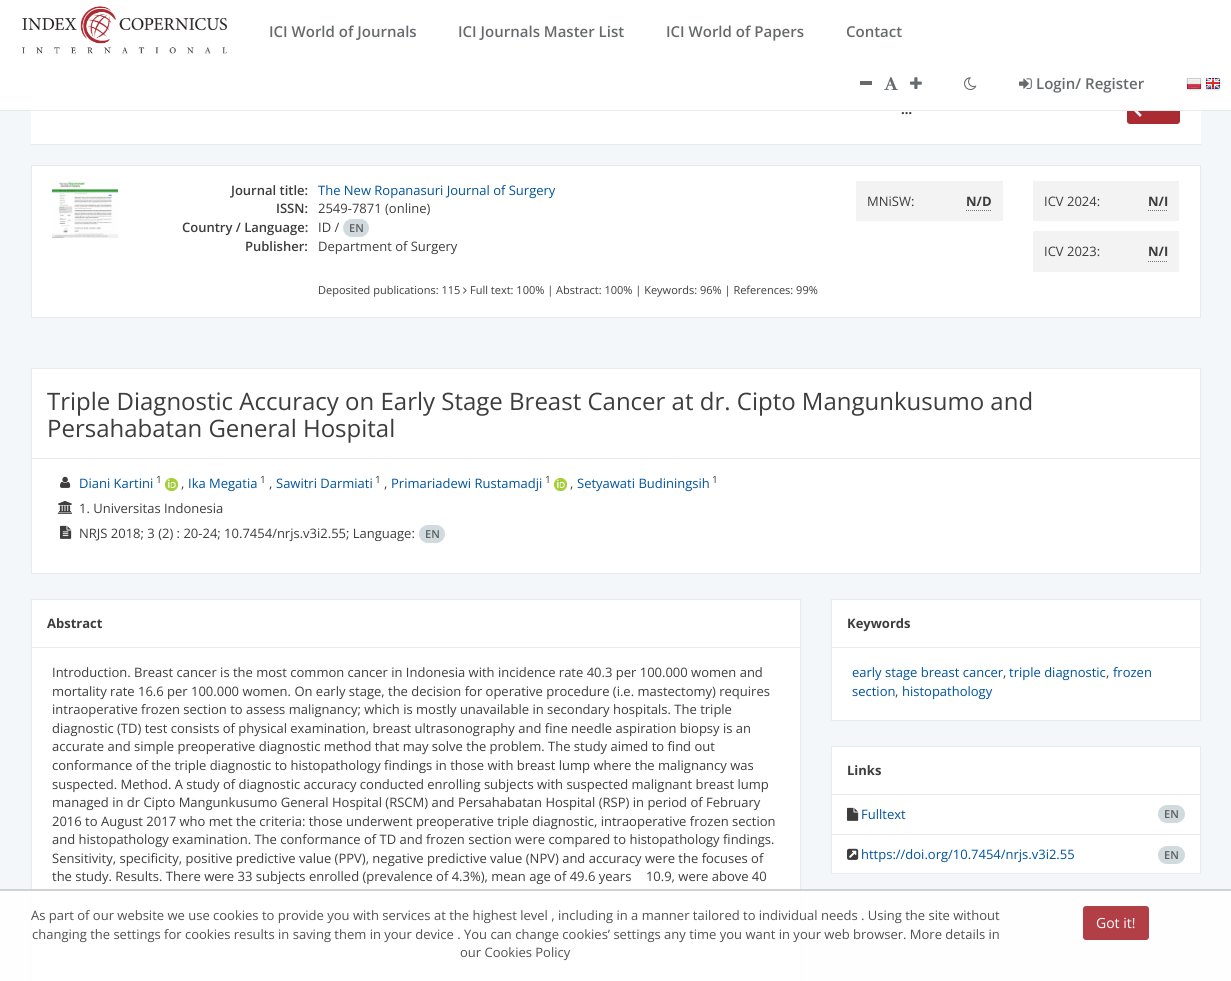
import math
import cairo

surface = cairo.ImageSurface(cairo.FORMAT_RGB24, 1231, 981)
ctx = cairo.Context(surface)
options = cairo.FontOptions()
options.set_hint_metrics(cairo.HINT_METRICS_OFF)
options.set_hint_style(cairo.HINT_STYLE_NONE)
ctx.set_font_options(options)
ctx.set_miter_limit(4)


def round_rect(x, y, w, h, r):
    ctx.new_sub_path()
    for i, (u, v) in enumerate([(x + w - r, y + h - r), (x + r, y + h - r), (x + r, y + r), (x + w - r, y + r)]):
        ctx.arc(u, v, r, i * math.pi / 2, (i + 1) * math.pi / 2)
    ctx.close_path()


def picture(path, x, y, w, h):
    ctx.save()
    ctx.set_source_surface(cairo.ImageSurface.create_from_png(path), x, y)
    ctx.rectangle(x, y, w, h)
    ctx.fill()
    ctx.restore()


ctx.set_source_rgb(0.957, 0.965, 0.98)
ctx.paint()
ctx.set_source_rgb(1, 1, 1)
ctx.rectangle(31, 111, 1170, 33)
ctx.fill()
ctx.set_source_rgb(0.667, 0.169, 0.192)
round_rect(1127.5, 100.5, 52, 23, 2.5)
ctx.fill_preserve()
ctx.set_line_width(1)
ctx.stroke()
ctx.set_source_rgb(1, 1, 1)
ctx.rectangle(0, 0, 1231, 110)
ctx.fill()
ctx.set_source_rgb(0.906, 0.918, 0.925)
ctx.rectangle(0, 110, 1231, 1)
ctx.fill()
picture("img1.png", 22, 6, 206, 48)
ctx.select_font_face("Open Sans SemiBold")
ctx.set_font_size(15)
ctx.set_source_rgb(0.404, 0.416, 0.424)
ctx.move_to(269, 37)
ctx.show_text("ICI World of Journals")
ctx.move_to(458, 37)
ctx.show_text("ICI Journals Master List")
ctx.move_to(666, 37)
ctx.show_text("ICI World of Papers")
ctx.move_to(846, 37)
ctx.show_text("Contact")
ctx.rectangle(860, 81, 12, 4)
ctx.fill()
picture("img2.png", 884, 77, 14, 14)
picture("img3.png", 910, 77, 12, 12)
picture("img4.png", 964, 77, 13, 14)
picture("img5.png", 1019, 78, 13, 11)
ctx.move_to(1036, 89)
ctx.show_text("Login/ Register")
picture("img6.png", 1186, 78, 16, 13)
picture("img7.png", 1205, 78, 16, 13)
ctx.set_source_rgb(0.906, 0.918, 0.925)
ctx.rectangle(31, 144, 1170, 1)
ctx.fill()
ctx.select_font_face("Open Sans", cairo.FONT_SLANT_NORMAL, cairo.FONT_WEIGHT_BOLD)
ctx.set_font_size(13)
ctx.set_source_rgb(0.239, 0.239, 0.239)
ctx.move_to(901, 114)
ctx.show_text("…")
picture("img8.png", 1134, 111, 8, 6)
ctx.set_source_rgb(1, 1, 1)
ctx.rectangle(31.5, 165.5, 1169, 152)
ctx.fill_preserve()
ctx.set_source_rgb(0.906, 0.918, 0.925)
ctx.stroke()
picture("img9.png", 52, 181, 66, 57)
ctx.select_font_face("Open Sans SemiBold")
ctx.set_source_rgb(0.239, 0.239, 0.239)
ctx.move_to(231, 195)
ctx.show_text("Journal title:")
ctx.select_font_face("Open Sans")
ctx.set_source_rgb(0, 0.325, 0.608)
ctx.move_to(318, 195)
ctx.show_text("The New Ropanasuri Journal of Surgery")
ctx.select_font_face("Open Sans SemiBold")
ctx.set_source_rgb(0.239, 0.239, 0.239)
ctx.move_to(276, 213)
ctx.show_text("ISSN:")
ctx.select_font_face("Open Sans")
ctx.move_to(318, 213)
ctx.show_text("2549-7871 (online)")
ctx.select_font_face("Open Sans SemiBold")
ctx.move_to(182, 232)
ctx.show_text("Country / Language:")
ctx.select_font_face("Open Sans")
ctx.move_to(318, 232)
ctx.show_text("ID /")
ctx.set_source_rgb(0.82, 0.855, 0.871)
round_rect(343, 219, 26, 18, 9)
ctx.fill()
ctx.select_font_face("Open Sans SemiBold")
ctx.set_font_size(11)
ctx.set_source_rgb(0.369, 0.369, 0.369)
ctx.move_to(349, 232)
ctx.show_text("EN")
ctx.set_font_size(13)
ctx.set_source_rgb(0.239, 0.239, 0.239)
ctx.move_to(245, 251)
ctx.show_text("Publisher:")
ctx.select_font_face("Open Sans")
ctx.move_to(318, 251)
ctx.show_text("Department of Surgery")
ctx.set_source_rgb(0.953, 0.953, 0.957)
ctx.rectangle(856, 181, 147, 40)
ctx.fill()
ctx.set_source_rgb(0.239, 0.239, 0.239)
ctx.move_to(867, 206)
ctx.show_text("MNiSW:")
ctx.new_path()
ctx.move_to(966, 210.5)
ctx.line_to(992, 210.5)
ctx.set_source_rgb(0.467, 0.467, 0.467)
ctx.set_dash([1, 1])
ctx.stroke()
ctx.select_font_face("Open Sans", cairo.FONT_SLANT_NORMAL, cairo.FONT_WEIGHT_BOLD)
ctx.set_source_rgb(0.239, 0.239, 0.239)
ctx.move_to(966, 206)
ctx.show_text("N/D")
ctx.set_source_rgb(0.953, 0.953, 0.957)
ctx.rectangle(1033, 181, 146, 40)
ctx.fill()
ctx.select_font_face("Open Sans")
ctx.set_source_rgb(0.239, 0.239, 0.239)
ctx.move_to(1044, 206)
ctx.show_text("ICV 2024:")
ctx.new_path()
ctx.move_to(1148, 210.5)
ctx.line_to(1168, 210.5)
ctx.set_source_rgb(0.467, 0.467, 0.467)
ctx.stroke()
ctx.select_font_face("Open Sans", cairo.FONT_SLANT_NORMAL, cairo.FONT_WEIGHT_BOLD)
ctx.set_source_rgb(0.239, 0.239, 0.239)
ctx.move_to(1148, 206)
ctx.show_text("N/I")
ctx.set_source_rgb(0.953, 0.953, 0.957)
ctx.rectangle(1033, 231, 146, 41)
ctx.fill()
ctx.select_font_face("Open Sans")
ctx.set_source_rgb(0.239, 0.239, 0.239)
ctx.move_to(1044, 256)
ctx.show_text("ICV 2023:")
ctx.new_path()
ctx.move_to(1148, 261.5)
ctx.line_to(1168, 261.5)
ctx.set_source_rgb(0.467, 0.467, 0.467)
ctx.stroke()
ctx.select_font_face("Open Sans", cairo.FONT_SLANT_NORMAL, cairo.FONT_WEIGHT_BOLD)
ctx.set_source_rgb(0.239, 0.239, 0.239)
ctx.move_to(1148, 256)
ctx.show_text("N/I")
ctx.select_font_face("Open Sans")
ctx.set_font_size(11)
ctx.move_to(318, 294)
ctx.show_text("Deposited publications: 115")
picture("img10.png", 463, 287, 4, 7)
ctx.move_to(470, 294)
ctx.show_text("Full text: 100% | Abstract: 100% | Keywords: 96% | References: 99%")
ctx.set_source_rgb(1, 1, 1)
ctx.rectangle(32, 369, 1168, 89)
ctx.fill()
ctx.set_source_rgb(0.906, 0.918, 0.925)
ctx.rectangle(31, 368, 1170, 1)
ctx.fill()
ctx.rectangle(1200, 368, 1, 90)
ctx.fill()
ctx.rectangle(31, 368, 1, 90)
ctx.fill()
ctx.set_font_size(24)
ctx.set_source_rgb(0.239, 0.239, 0.239)
ctx.move_to(47, 410)
ctx.show_text("Triple Diagnostic Accuracy on Early Stage Breast Cancer at dr. Cipto Mangunkusumo and")
ctx.move_to(47, 437)
ctx.show_text("Persahabatan General Hospital")
ctx.set_source_rgb(1, 1, 1)
ctx.rectangle(31.5, 458.5, 1169, 115)
ctx.fill_preserve()
ctx.set_source_rgb(0.906, 0.918, 0.925)
ctx.set_dash([])
ctx.stroke()
picture("img11.png", 60, 476, 11, 12)
ctx.set_font_size(13)
ctx.set_source_rgb(0, 0.325, 0.608)
ctx.move_to(79, 488)
ctx.show_text("Diani Kartini")
ctx.set_font_size(10)
ctx.set_source_rgb(0.239, 0.239, 0.239)
ctx.move_to(156, 483)
ctx.show_text("1")
picture("img12.png", 165, 478, 13, 13)
ctx.set_font_size(13)
ctx.move_to(181, 488)
ctx.show_text(",")
ctx.set_source_rgb(0, 0.325, 0.608)
ctx.move_to(188, 488)
ctx.show_text("Ika Megatia")
ctx.set_font_size(10)
ctx.set_source_rgb(0.239, 0.239, 0.239)
ctx.move_to(260, 483)
ctx.show_text("1")
ctx.set_font_size(13)
ctx.move_to(269, 488)
ctx.show_text(",")
ctx.set_source_rgb(0, 0.325, 0.608)
ctx.move_to(276, 488)
ctx.show_text("Sawitri Darmiati")
ctx.set_font_size(10)
ctx.set_source_rgb(0.239, 0.239, 0.239)
ctx.move_to(375, 483)
ctx.show_text("1")
ctx.set_font_size(13)
ctx.move_to(384, 488)
ctx.show_text(",")
ctx.set_source_rgb(0, 0.325, 0.608)
ctx.move_to(391, 488)
ctx.show_text("Primariadewi Rustamadji")
ctx.set_font_size(10)
ctx.set_source_rgb(0.239, 0.239, 0.239)
ctx.move_to(545, 483)
ctx.show_text("1")
picture("img13.png", 554, 478, 13, 13)
ctx.set_font_size(13)
ctx.move_to(570, 488)
ctx.show_text(",")
ctx.set_source_rgb(0, 0.325, 0.608)
ctx.move_to(577, 488)
ctx.show_text("Setyawati Budiningsih")
ctx.set_font_size(10)
ctx.set_source_rgb(0.239, 0.239, 0.239)
ctx.move_to(712, 483)
ctx.show_text("1")
picture("img14.png", 58, 500, 14, 14)
ctx.set_font_size(13)
ctx.move_to(79, 513)
ctx.show_text("1. Universitas Indonesia")
picture("img15.png", 60, 525, 12, 14)
ctx.move_to(79, 538)
ctx.show_text("NRJS 2018; 3 (2) : 20-24; 10.7454/nrjs.v3i2.55; Language:")
ctx.set_source_rgb(0.82, 0.855, 0.871)
round_rect(419, 525, 26, 18, 9)
ctx.fill()
ctx.select_font_face("Open Sans SemiBold")
ctx.set_font_size(11)
ctx.set_source_rgb(0.369, 0.369, 0.369)
ctx.move_to(425, 538)
ctx.show_text("EN")
ctx.set_source_rgb(1, 1, 1)
ctx.rectangle(32, 600, 768, 47)
ctx.fill()
ctx.set_source_rgb(0.906, 0.918, 0.925)
ctx.rectangle(31, 599, 770, 1)
ctx.fill()
ctx.rectangle(800, 599, 1, 48)
ctx.fill()
ctx.rectangle(31, 599, 1, 48)
ctx.fill()
ctx.select_font_face("Open Sans", cairo.FONT_SLANT_NORMAL, cairo.FONT_WEIGHT_BOLD)
ctx.set_font_size(13)
ctx.set_source_rgb(0.239, 0.239, 0.239)
ctx.move_to(47, 628)
ctx.show_text("Abstract")
ctx.set_source_rgb(1, 1, 1)
ctx.rectangle(31.5, 647.5, 769, 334)
ctx.fill_preserve()
ctx.set_source_rgb(0.906, 0.918, 0.925)
ctx.stroke()
ctx.select_font_face("Open Sans")
ctx.set_source_rgb(0.239, 0.239, 0.239)
ctx.move_to(52, 677)
ctx.show_text("Introduction. Breast cancer is the most common cancer in Indonesia with incidence rate 40.3 per 100.000 women and")
ctx.move_to(52, 696)
ctx.show_text("mortality rate 16.6 per 100.000 women. On early stage, the decision for operative procedure (i.e. mastectomy) requires")
ctx.move_to(52, 714)
ctx.show_text("intraoperative frozen section to assess malignancy; which is mostly unavailable in secondary hospitals. The triple")
ctx.move_to(52, 733)
ctx.show_text("diagnostic (TD) test consists of physical examination, breast ultrasonography and fine needle aspiration biopsy is an")
ctx.move_to(52, 751)
ctx.show_text("accurate and simple preoperative diagnostic method that may solve the problem. The study aimed to find out")
ctx.move_to(52, 770)
ctx.show_text("conformance of the triple diagnostic to histopathology findings in those with breast lump where the malignancy was")
ctx.move_to(52, 789)
ctx.show_text("suspected. Method. A study of diagnostic accuracy conducted enrolling subjects with suspected malignant breast lump")
ctx.move_to(52, 807)
ctx.show_text("managed in dr Cipto Mangunkusumo General Hospital (RSCM) and Persahabatan Hospital (RSP) in period of February")
ctx.move_to(52, 826)
ctx.show_text("2016 to August 2017 who met the criteria: those underwent preoperative triple diagnostic, intraoperative frozen section")
ctx.move_to(52, 844)
ctx.show_text("and histopathology examination. The conformance of TD and frozen section were compared to histopathology findings.")
ctx.move_to(52, 863)
ctx.show_text("Sensitivity, specificity, positive predictive value (PPV), negative predictive value (NPV) and accuracy were the focuses of")
ctx.move_to(52, 881)
ctx.show_text("the study. Results. There were 33 subjects enrolled (prevalence of 4.3%), mean age of 49.6 years   10.9, were above 40")
ctx.set_source_rgb(1, 1, 1)
ctx.rectangle(832, 600, 368, 47)
ctx.fill()
ctx.set_source_rgb(0.906, 0.918, 0.925)
ctx.rectangle(831, 599, 370, 1)
ctx.fill()
ctx.rectangle(1200, 599, 1, 48)
ctx.fill()
ctx.rectangle(831, 599, 1, 48)
ctx.fill()
ctx.select_font_face("Open Sans", cairo.FONT_SLANT_NORMAL, cairo.FONT_WEIGHT_BOLD)
ctx.set_source_rgb(0.239, 0.239, 0.239)
ctx.move_to(847, 628)
ctx.show_text("Keywords")
ctx.set_source_rgb(1, 1, 1)
ctx.rectangle(831.5, 647.5, 369, 73)
ctx.fill_preserve()
ctx.set_source_rgb(0.906, 0.918, 0.925)
ctx.stroke()
ctx.select_font_face("Open Sans")
ctx.set_source_rgb(0, 0.325, 0.608)
ctx.move_to(852, 677)
ctx.show_text("early stage breast cancer")
ctx.set_source_rgb(0.239, 0.239, 0.239)
ctx.move_to(1003, 677)
ctx.show_text(",")
ctx.set_source_rgb(0, 0.325, 0.608)
ctx.move_to(1009, 677)
ctx.show_text("triple diagnostic")
ctx.set_source_rgb(0.239, 0.239, 0.239)
ctx.move_to(1106, 677)
ctx.show_text(",")
ctx.set_source_rgb(0, 0.325, 0.608)
ctx.move_to(1113, 677)
ctx.show_text("frozen")
ctx.move_to(852, 696)
ctx.show_text("section")
ctx.set_source_rgb(0.239, 0.239, 0.239)
ctx.move_to(895, 696)
ctx.show_text(",")
ctx.set_source_rgb(0, 0.325, 0.608)
ctx.move_to(902, 696)
ctx.show_text("histopathology")
ctx.set_source_rgb(1, 1, 1)
ctx.rectangle(832, 747, 368, 47)
ctx.fill()
ctx.set_source_rgb(0.906, 0.918, 0.925)
ctx.rectangle(831, 746, 370, 1)
ctx.fill()
ctx.rectangle(1200, 746, 1, 48)
ctx.fill()
ctx.rectangle(831, 746, 1, 48)
ctx.fill()
ctx.select_font_face("Open Sans", cairo.FONT_SLANT_NORMAL, cairo.FONT_WEIGHT_BOLD)
ctx.set_source_rgb(0.239, 0.239, 0.239)
ctx.move_to(847, 775)
ctx.show_text("Links")
ctx.set_source_rgb(1, 1, 1)
ctx.rectangle(831.5, 794.5, 369, 79)
ctx.fill_preserve()
ctx.set_source_rgb(0.906, 0.918, 0.925)
ctx.stroke()
picture("img16.png", 847, 807, 12, 14)
ctx.select_font_face("Open Sans")
ctx.set_source_rgb(0, 0.325, 0.608)
ctx.move_to(861, 819)
ctx.show_text("Fulltext")
ctx.set_source_rgb(0.82, 0.855, 0.871)
round_rect(1158, 805, 27, 18, 9)
ctx.fill()
ctx.select_font_face("Open Sans SemiBold")
ctx.set_font_size(11)
ctx.set_source_rgb(0.369, 0.369, 0.369)
ctx.move_to(1164, 818)
ctx.show_text("EN")
ctx.set_source_rgb(0.906, 0.918, 0.925)
ctx.rectangle(832, 834, 368, 1)
ctx.fill()
picture("img17.png", 847, 848, 12, 12)
ctx.select_font_face("Open Sans")
ctx.set_font_size(13)
ctx.set_source_rgb(0, 0.325, 0.608)
ctx.move_to(861, 859)
ctx.show_text("https://doi.org/10.7454/nrjs.v3i2.55")
ctx.set_source_rgb(0.82, 0.855, 0.871)
round_rect(1158, 846, 27, 18, 9)
ctx.fill()
ctx.select_font_face("Open Sans SemiBold")
ctx.set_font_size(11)
ctx.set_source_rgb(0.369, 0.369, 0.369)
ctx.move_to(1164, 859)
ctx.show_text("EN")
ctx.set_source_rgba(1, 1, 1, 0.9)
ctx.rectangle(0, 889, 1231, 92)
ctx.fill()
ctx.set_source_rgba(0.8, 0.8, 0.8, 0.9)
ctx.rectangle(0, 889, 1231, 2)
ctx.fill()
ctx.select_font_face("Open Sans")
ctx.set_font_size(13)
ctx.set_source_rgb(0.314, 0.314, 0.314)
ctx.move_to(31, 920)
ctx.show_text("As part of our website we use cookies to provide you with services at the highest level , including in a manner tailored to individual needs . Using the site without")
ctx.move_to(32, 939)
ctx.show_text("changing the settings for cookies results in saving them in your device . You can change cookies’ settings any time you want in your web browser. More details in")
ctx.move_to(460, 957)
ctx.show_text("our Cookies Policy")
ctx.set_source_rgb(0.694, 0.247, 0.271)
round_rect(1083, 906, 66, 34, 3)
ctx.fill()
ctx.set_font_size(14)
ctx.set_source_rgb(0.996, 0.996, 1)
ctx.move_to(1096, 928)
ctx.show_text("Got it!")
surface.write_to_png("page.png")
